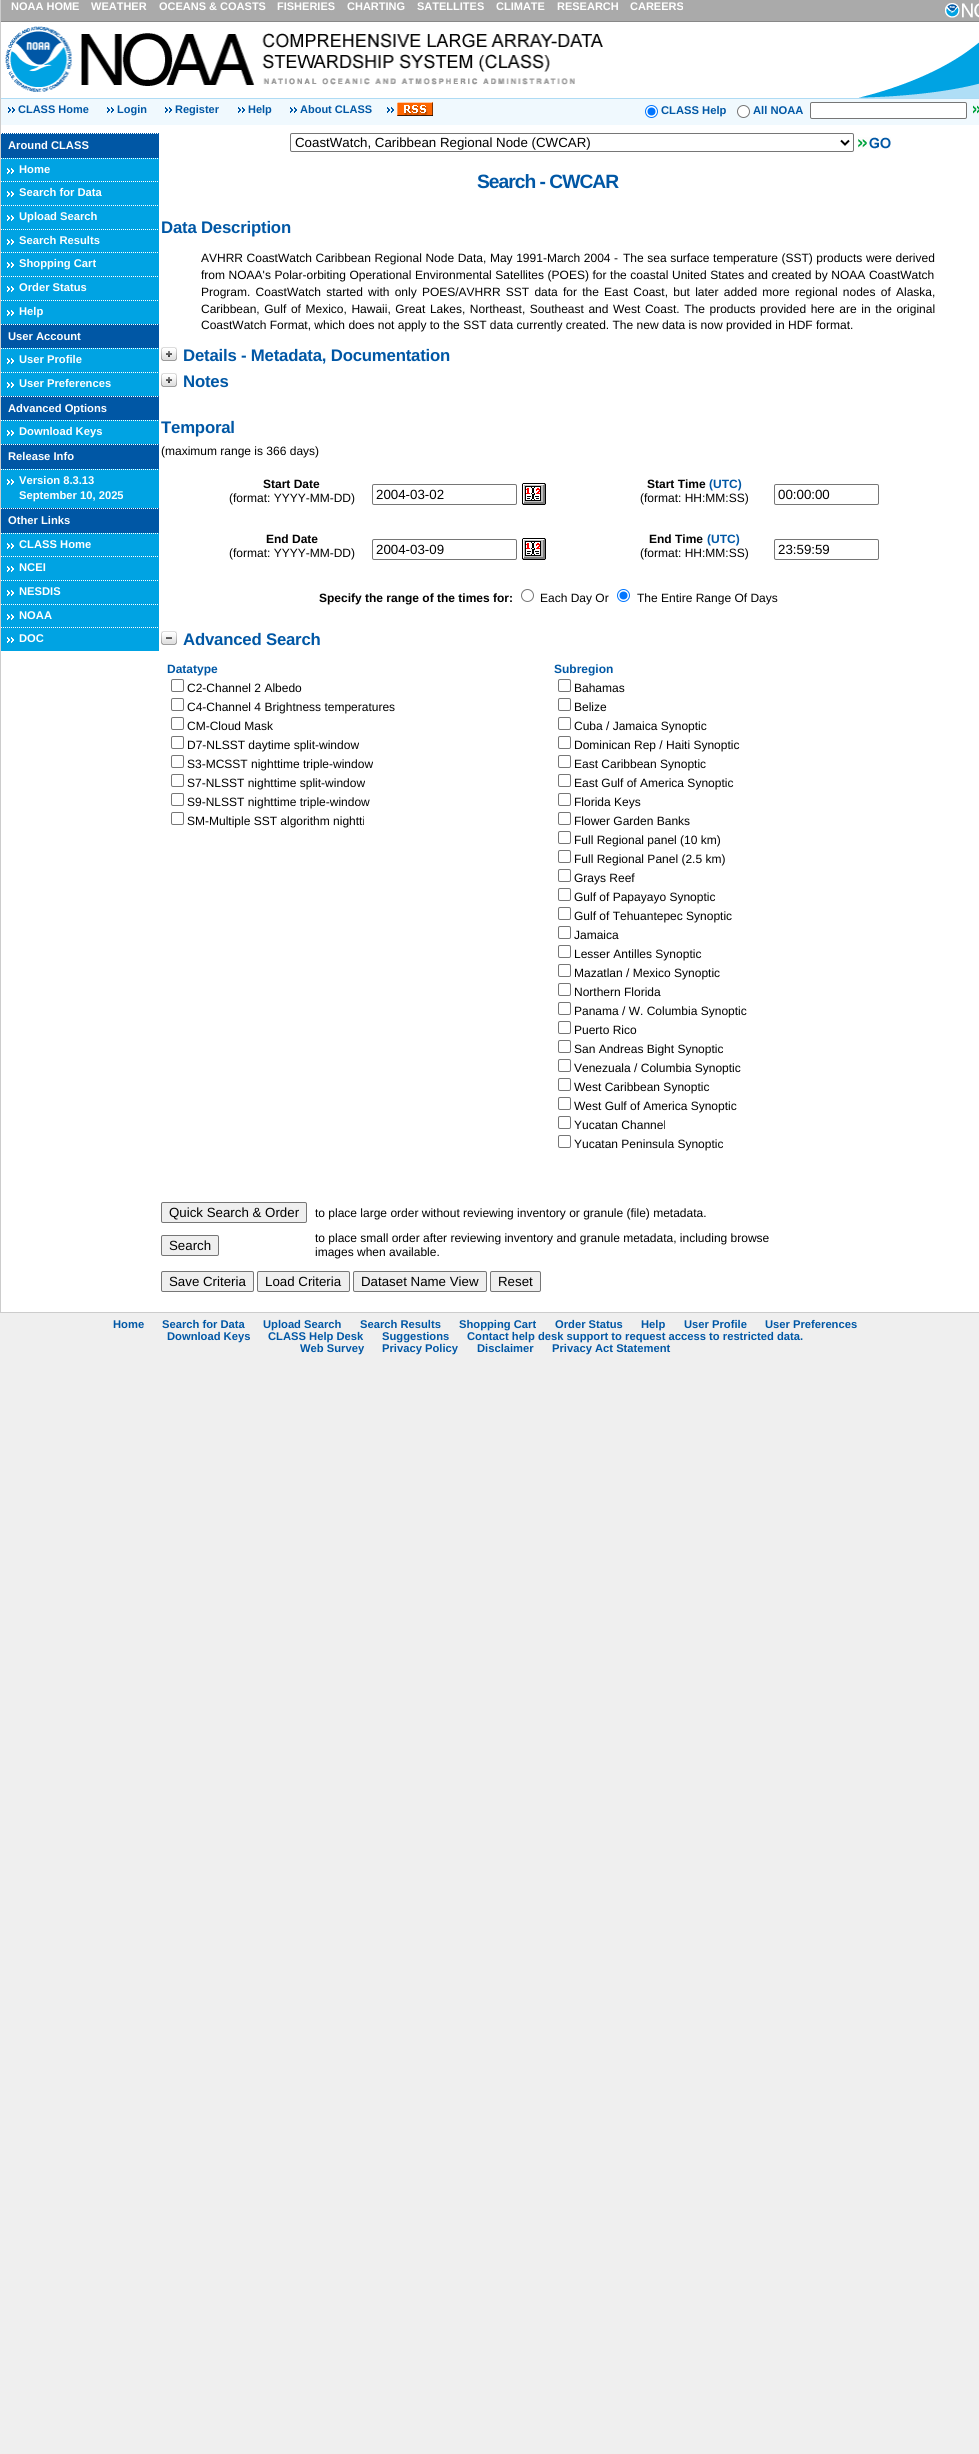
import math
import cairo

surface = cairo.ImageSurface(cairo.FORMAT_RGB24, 979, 2454)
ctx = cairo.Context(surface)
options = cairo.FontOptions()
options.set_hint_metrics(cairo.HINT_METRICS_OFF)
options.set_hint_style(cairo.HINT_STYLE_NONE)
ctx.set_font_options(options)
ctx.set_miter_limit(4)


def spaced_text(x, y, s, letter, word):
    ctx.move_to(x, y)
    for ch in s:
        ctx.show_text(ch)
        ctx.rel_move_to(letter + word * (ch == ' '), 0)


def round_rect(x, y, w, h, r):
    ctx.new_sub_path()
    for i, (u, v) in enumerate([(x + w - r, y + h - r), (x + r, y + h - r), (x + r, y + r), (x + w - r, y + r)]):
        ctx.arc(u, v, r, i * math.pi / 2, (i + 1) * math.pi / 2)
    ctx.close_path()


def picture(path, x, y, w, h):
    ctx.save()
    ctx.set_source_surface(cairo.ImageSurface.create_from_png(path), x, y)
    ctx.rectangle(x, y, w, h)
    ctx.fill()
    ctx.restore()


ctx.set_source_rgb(0.937, 0.937, 0.937)
ctx.paint()
ctx.set_source_rgb(1, 1, 1)
ctx.rectangle(1, 22, 978, 1290)
ctx.fill()
ctx.set_source_rgb(0.8, 0.8, 0.8)
ctx.rectangle(0, 1312, 979, 1)
ctx.fill()
ctx.rectangle(0, 0, 1, 1313)
ctx.fill()
ctx.set_source_rgb(0.667, 0.667, 0.667)
ctx.rectangle(1, 0, 978, 21)
ctx.fill()
picture("img1.png", 945, 3, 34, 15)
ctx.set_source_rgb(0.533, 0.533, 0.533)
ctx.rectangle(1, 21, 978, 1)
ctx.fill()
ctx.select_font_face("Liberation Sans", cairo.FONT_SLANT_NORMAL, cairo.FONT_WEIGHT_BOLD)
ctx.set_font_size(11)
ctx.set_source_rgb(1, 1, 1)
ctx.move_to(11, 10)
ctx.show_text("NOAA HOME")
ctx.move_to(91, 10)
ctx.show_text("WEATHER")
ctx.move_to(159, 10)
ctx.show_text("OCEANS & COASTS")
ctx.move_to(277, 10)
ctx.show_text("FISHERIES")
ctx.move_to(347, 10)
ctx.show_text("CHARTING")
ctx.move_to(417, 10)
ctx.show_text("SATELLITES")
ctx.move_to(496, 10)
ctx.show_text("CLIMATE")
ctx.move_to(557, 10)
ctx.show_text("RESEARCH")
ctx.move_to(630, 10)
ctx.show_text("CAREERS")
picture("img2.png", 859, 42, 120, 56)
picture("img3.png", 5, 26, 598, 66)
ctx.set_source_rgb(0.941, 0.973, 0.996)
ctx.rectangle(1, 99, 978, 26)
ctx.fill()
ctx.set_source_rgb(0.682, 0.859, 0.957)
ctx.rectangle(1, 98, 978, 1)
ctx.fill()
picture("img4.png", 8, 107, 7, 6)
ctx.set_source_rgb(0, 0.341, 0.647)
ctx.move_to(18, 113)
ctx.show_text("CLASS Home")
picture("img4.png", 107, 107, 7, 6)
ctx.move_to(117, 113)
ctx.show_text("Login")
picture("img4.png", 165, 107, 7, 6)
ctx.move_to(175, 113)
ctx.show_text("Register")
picture("img4.png", 238, 107, 7, 6)
ctx.move_to(248, 113)
ctx.show_text("Help")
picture("img4.png", 290, 107, 7, 6)
ctx.move_to(300, 113)
ctx.show_text("About CLASS")
picture("img4.png", 387, 107, 7, 6)
picture("img5.png", 397, 102, 36, 14)
ctx.set_source_rgb(1, 1, 1)
ctx.arc(651.5, 111.5, 6, 0, 2 * math.pi)
ctx.fill_preserve()
ctx.set_source_rgb(0, 0.459, 1)
ctx.set_line_width(1)
ctx.stroke()
ctx.arc(651.5, 111.5, 4, 0, 2 * math.pi)
ctx.fill()
ctx.set_font_size(11.2)
ctx.set_source_rgb(0, 0.341, 0.647)
ctx.move_to(661, 114)
ctx.show_text("CLASS Help")
ctx.set_source_rgb(1, 1, 1)
ctx.new_path()
ctx.arc(743.5, 111.5, 6, 0, 2 * math.pi)
ctx.fill_preserve()
ctx.set_source_rgb(0.463, 0.463, 0.463)
ctx.stroke()
ctx.set_source_rgb(0, 0.341, 0.647)
ctx.move_to(753, 114)
ctx.show_text("All NOAA")
ctx.set_source_rgb(1, 1, 1)
round_rect(810.5, 102.5, 156, 16, 1.5)
ctx.fill_preserve()
ctx.set_source_rgb(0.463, 0.463, 0.463)
ctx.stroke()
picture("img6.png", 973, 105, 6, 9)
ctx.set_source_rgb(0, 0.341, 0.647)
ctx.rectangle(1, 133, 158, 25)
ctx.fill()
ctx.new_path()
ctx.move_to(1, 133.5)
ctx.line_to(159, 133.5)
ctx.set_source_rgb(1, 1, 1)
ctx.set_dash([1, 1])
ctx.stroke()
ctx.move_to(8, 149)
ctx.show_text("Around CLASS")
ctx.set_source_rgb(0, 0.639, 0.89)
ctx.rectangle(1, 158, 158, 166)
ctx.fill()
picture("img7.png", 7, 168, 7, 6)
ctx.new_path()
ctx.move_to(1, 158.5)
ctx.line_to(159, 158.5)
ctx.set_source_rgb(1, 1, 1)
ctx.stroke()
ctx.move_to(19, 173)
ctx.show_text("Home")
picture("img7.png", 7, 191, 7, 6)
ctx.new_path()
ctx.move_to(1, 181.5)
ctx.line_to(159, 181.5)
ctx.stroke()
ctx.move_to(19, 196)
ctx.show_text("Search for Data")
picture("img7.png", 7, 215, 7, 6)
ctx.new_path()
ctx.move_to(1, 205.5)
ctx.line_to(159, 205.5)
ctx.stroke()
ctx.move_to(19, 220)
ctx.show_text("Upload Search")
picture("img7.png", 7, 239, 7, 6)
ctx.new_path()
ctx.move_to(1, 229.5)
ctx.line_to(159, 229.5)
ctx.stroke()
ctx.move_to(19, 244)
ctx.show_text("Search Results")
picture("img7.png", 7, 262, 7, 6)
ctx.new_path()
ctx.move_to(1, 252.5)
ctx.line_to(159, 252.5)
ctx.stroke()
ctx.move_to(19, 267)
ctx.show_text("Shopping Cart")
picture("img7.png", 7, 286, 7, 6)
ctx.new_path()
ctx.move_to(1, 276.5)
ctx.line_to(159, 276.5)
ctx.stroke()
ctx.move_to(19, 291)
ctx.show_text("Order Status")
picture("img7.png", 7, 310, 7, 6)
ctx.new_path()
ctx.move_to(1, 300.5)
ctx.line_to(159, 300.5)
ctx.stroke()
ctx.move_to(19, 315)
ctx.show_text("Help")
ctx.set_source_rgb(0, 0.341, 0.647)
ctx.rectangle(1, 324, 158, 24)
ctx.fill()
ctx.new_path()
ctx.move_to(1, 324.5)
ctx.line_to(159, 324.5)
ctx.set_source_rgb(1, 1, 1)
ctx.stroke()
ctx.move_to(8, 340)
ctx.show_text("User Account")
ctx.set_source_rgb(0, 0.639, 0.89)
ctx.rectangle(1, 348, 158, 48)
ctx.fill()
picture("img7.png", 7, 358, 7, 6)
ctx.new_path()
ctx.move_to(1, 348.5)
ctx.line_to(159, 348.5)
ctx.set_source_rgb(1, 1, 1)
ctx.stroke()
ctx.move_to(19, 363)
ctx.show_text("User Profile")
picture("img7.png", 7, 382, 7, 6)
ctx.new_path()
ctx.move_to(1, 372.5)
ctx.line_to(159, 372.5)
ctx.stroke()
ctx.move_to(19, 387)
ctx.show_text("User Preferences")
ctx.set_source_rgb(0, 0.341, 0.647)
ctx.rectangle(1, 396, 158, 24)
ctx.fill()
ctx.new_path()
ctx.move_to(1, 396.5)
ctx.line_to(159, 396.5)
ctx.set_source_rgb(1, 1, 1)
ctx.stroke()
ctx.move_to(8, 412)
ctx.show_text("Advanced Options")
ctx.set_source_rgb(0, 0.639, 0.89)
ctx.rectangle(1, 420, 158, 24)
ctx.fill()
picture("img7.png", 7, 430, 7, 6)
ctx.new_path()
ctx.move_to(1, 420.5)
ctx.line_to(159, 420.5)
ctx.set_source_rgb(1, 1, 1)
ctx.stroke()
ctx.move_to(19, 435)
ctx.show_text("Download Keys")
ctx.set_source_rgb(0, 0.341, 0.647)
ctx.rectangle(1, 444, 158, 25)
ctx.fill()
ctx.new_path()
ctx.move_to(1, 444.5)
ctx.line_to(159, 444.5)
ctx.set_source_rgb(1, 1, 1)
ctx.stroke()
ctx.move_to(8, 460)
ctx.show_text("Release Info")
ctx.set_source_rgb(0, 0.639, 0.89)
ctx.rectangle(1, 469, 158, 39)
ctx.fill()
picture("img7.png", 7, 479, 7, 6)
ctx.new_path()
ctx.move_to(1, 469.5)
ctx.line_to(159, 469.5)
ctx.set_source_rgb(1, 1, 1)
ctx.stroke()
ctx.move_to(19, 484)
ctx.show_text("Version 8.3.13")
ctx.move_to(19, 499)
ctx.show_text("September 10, 2025")
ctx.set_source_rgb(0, 0.341, 0.647)
ctx.rectangle(1, 508, 158, 25)
ctx.fill()
ctx.new_path()
ctx.move_to(1, 508.5)
ctx.line_to(159, 508.5)
ctx.set_source_rgb(1, 1, 1)
ctx.stroke()
ctx.move_to(8, 524)
ctx.show_text("Other Links")
ctx.set_source_rgb(0, 0.639, 0.89)
ctx.rectangle(1, 533, 158, 118)
ctx.fill()
picture("img7.png", 7, 543, 7, 6)
ctx.new_path()
ctx.move_to(1, 533.5)
ctx.line_to(159, 533.5)
ctx.set_source_rgb(1, 1, 1)
ctx.stroke()
ctx.move_to(19, 548)
ctx.show_text("CLASS Home")
picture("img7.png", 7, 566, 7, 6)
ctx.new_path()
ctx.move_to(1, 556.5)
ctx.line_to(159, 556.5)
ctx.stroke()
ctx.move_to(19, 571)
ctx.show_text("NCEI")
picture("img7.png", 7, 590, 7, 6)
ctx.new_path()
ctx.move_to(1, 580.5)
ctx.line_to(159, 580.5)
ctx.stroke()
ctx.move_to(19, 595)
ctx.show_text("NESDIS")
picture("img7.png", 7, 614, 7, 6)
ctx.new_path()
ctx.move_to(1, 604.5)
ctx.line_to(159, 604.5)
ctx.stroke()
ctx.move_to(19, 619)
ctx.show_text("NOAA")
picture("img7.png", 7, 637, 7, 6)
ctx.new_path()
ctx.move_to(1, 627.5)
ctx.line_to(159, 627.5)
ctx.stroke()
ctx.move_to(19, 642)
ctx.show_text("DOC")
round_rect(290.5, 133.5, 563, 18, 1.5)
ctx.set_source_rgb(0.463, 0.463, 0.463)
ctx.set_dash([])
ctx.stroke()
ctx.new_path()
ctx.move_to(841, 140.5)
ctx.line_to(845, 144.5)
ctx.line_to(849, 140.5)
ctx.set_source_rgb(0, 0, 0)
ctx.set_line_width(2)
ctx.stroke()
ctx.select_font_face("Liberation Sans")
ctx.set_font_size(13.3)
ctx.move_to(295, 147)
ctx.show_text("CoastWatch, Caribbean Regional Node (CWCAR)")
picture("img8.png", 858, 137, 33, 12)
ctx.select_font_face("Liberation Sans", cairo.FONT_SLANT_NORMAL, cairo.FONT_WEIGHT_BOLD)
ctx.set_font_size(19.25)
ctx.set_source_rgb(0, 0.341, 0.647)
spaced_text(477, 188, "Search - CWCAR", -1, 0)
ctx.set_font_size(16.75)
spaced_text(161, 233, "Data Description", -0.2, 0)
ctx.select_font_face("Liberation Sans")
ctx.set_font_size(12)
ctx.set_source_rgb(0, 0, 0)
spaced_text(201, 262, "AVHRR CoastWatch Caribbean Regional Node Data, May 1991-March 2004 -", 0, 0.25)
spaced_text(623, 262, "The sea surface temperature (SST) products were derived", 0, 0.25)
spaced_text(201, 279, "from NOAA's Polar-orbiting Operational Environmental Satellites (POES) for the coastal United States and created by NOAA CoastWatch", 0, 0.25)
spaced_text(201, 296, "Program. CoastWatch started with only POES/AVHRR SST data for the East Coast, but later added more regional nodes of Alaska,", 0, 1.9)
spaced_text(201, 313, "Caribbean, Gulf of Mexico, Hawaii, Great Lakes, Northeast, Southeast and West Coast. The products provided here are in the original", 0, 1.25)
ctx.move_to(201, 329)
ctx.show_text("CoastWatch Format, which does not apply to the SST data currently created. The new data is now provided in HDF format.")
picture("img9.png", 161, 347, 16, 14)
ctx.select_font_face("Liberation Sans", cairo.FONT_SLANT_NORMAL, cairo.FONT_WEIGHT_BOLD)
ctx.set_font_size(16.75)
ctx.set_source_rgb(0, 0.341, 0.647)
spaced_text(183, 361, "Details - Metadata, Documentation", -0.2, 0)
picture("img9.png", 161, 373, 16, 14)
spaced_text(183, 387, "Notes", -0.2, 0)
spaced_text(161, 433, "Temporal", -0.2, 0)
ctx.select_font_face("Liberation Sans")
ctx.set_font_size(12)
ctx.set_source_rgb(0, 0, 0)
ctx.move_to(161, 455)
ctx.show_text("(maximum range is 366 days)")
ctx.select_font_face("Liberation Sans", cairo.FONT_SLANT_NORMAL, cairo.FONT_WEIGHT_BOLD)
ctx.move_to(263, 488)
ctx.show_text("Start Date")
ctx.select_font_face("Liberation Sans")
ctx.move_to(229, 502)
ctx.show_text("(format: YYYY-MM-DD)")
round_rect(372.5, 484.5, 144, 20, 1.5)
ctx.set_source_rgb(0.463, 0.463, 0.463)
ctx.set_line_width(1)
ctx.stroke()
ctx.set_font_size(13.3)
ctx.set_source_rgb(0, 0, 0)
ctx.move_to(376, 499)
ctx.show_text("2004-03-02")
picture("img10.png", 522, 483, 24, 22)
ctx.select_font_face("Liberation Sans", cairo.FONT_SLANT_NORMAL, cairo.FONT_WEIGHT_BOLD)
ctx.set_font_size(12)
ctx.move_to(647, 488)
ctx.show_text("Start Time")
ctx.set_source_rgb(0, 0.341, 0.647)
ctx.move_to(709, 488)
ctx.show_text("(UTC)")
ctx.select_font_face("Liberation Sans")
ctx.set_source_rgb(0, 0, 0)
ctx.move_to(640, 502)
ctx.show_text("(format: HH:MM:SS)")
round_rect(774.5, 484.5, 104, 20, 1.5)
ctx.set_source_rgb(0.463, 0.463, 0.463)
ctx.stroke()
ctx.set_font_size(13.3)
ctx.set_source_rgb(0, 0, 0)
ctx.move_to(778, 499)
ctx.show_text("00:00:00")
ctx.select_font_face("Liberation Sans", cairo.FONT_SLANT_NORMAL, cairo.FONT_WEIGHT_BOLD)
ctx.set_font_size(12)
ctx.move_to(266, 543)
ctx.show_text("End Date")
ctx.select_font_face("Liberation Sans")
ctx.move_to(229, 557)
ctx.show_text("(format: YYYY-MM-DD)")
round_rect(372.5, 539.5, 144, 20, 1.5)
ctx.set_source_rgb(0.463, 0.463, 0.463)
ctx.stroke()
ctx.set_font_size(13.3)
ctx.set_source_rgb(0, 0, 0)
ctx.move_to(376, 554)
ctx.show_text("2004-03-09")
picture("img10.png", 522, 538, 24, 22)
ctx.select_font_face("Liberation Sans", cairo.FONT_SLANT_NORMAL, cairo.FONT_WEIGHT_BOLD)
ctx.set_font_size(12)
ctx.move_to(649, 543)
ctx.show_text("End Time")
ctx.set_source_rgb(0, 0.341, 0.647)
ctx.move_to(707, 543)
ctx.show_text("(UTC)")
ctx.select_font_face("Liberation Sans")
ctx.set_source_rgb(0, 0, 0)
ctx.move_to(640, 557)
ctx.show_text("(format: HH:MM:SS)")
round_rect(774.5, 539.5, 104, 20, 1.5)
ctx.set_source_rgb(0.463, 0.463, 0.463)
ctx.stroke()
ctx.set_font_size(13.3)
ctx.set_source_rgb(0, 0, 0)
ctx.move_to(778, 554)
ctx.show_text("23:59:59")
ctx.select_font_face("Liberation Sans", cairo.FONT_SLANT_NORMAL, cairo.FONT_WEIGHT_BOLD)
ctx.set_font_size(12)
ctx.move_to(319, 602)
ctx.show_text("Specify the range of the times for:")
ctx.new_path()
ctx.arc(527.5, 595.5, 6, 0, 2 * math.pi)
ctx.set_source_rgb(0.463, 0.463, 0.463)
ctx.stroke()
ctx.select_font_face("Liberation Sans")
ctx.set_source_rgb(0, 0, 0)
ctx.move_to(540, 602)
ctx.show_text("Each Day Or")
ctx.new_path()
ctx.arc(623.5, 595.5, 6, 0, 2 * math.pi)
ctx.set_source_rgb(0, 0.459, 1)
ctx.stroke()
ctx.arc(623.5, 595.5, 4, 0, 2 * math.pi)
ctx.fill()
ctx.set_source_rgb(0, 0, 0)
ctx.move_to(637, 602)
ctx.show_text("The Entire Range Of Days")
picture("img11.png", 161, 631, 16, 14)
ctx.select_font_face("Liberation Sans", cairo.FONT_SLANT_NORMAL, cairo.FONT_WEIGHT_BOLD)
ctx.set_font_size(16.75)
ctx.set_source_rgb(0, 0.341, 0.647)
spaced_text(183, 645, "Advanced Search", -0.2, 0)
ctx.set_font_size(12)
ctx.move_to(167, 673)
ctx.show_text("Datatype")
round_rect(171.5, 679.5, 12, 12, 1.5)
ctx.set_source_rgb(0.463, 0.463, 0.463)
ctx.stroke()
ctx.select_font_face("Liberation Sans")
ctx.set_source_rgb(0, 0, 0)
ctx.move_to(187, 692)
ctx.show_text("C2-Channel 2 Albedo")
round_rect(171.5, 698.5, 12, 12, 1.5)
ctx.set_source_rgb(0.463, 0.463, 0.463)
ctx.stroke()
ctx.set_source_rgb(0, 0, 0)
ctx.move_to(187, 711)
ctx.show_text("C4-Channel 4 Brightness temperatures")
round_rect(171.5, 717.5, 12, 12, 1.5)
ctx.set_source_rgb(0.463, 0.463, 0.463)
ctx.stroke()
ctx.set_source_rgb(0, 0, 0)
ctx.move_to(187, 730)
ctx.show_text("CM-Cloud Mask")
round_rect(171.5, 736.5, 12, 12, 1.5)
ctx.set_source_rgb(0.463, 0.463, 0.463)
ctx.stroke()
ctx.set_source_rgb(0, 0, 0)
ctx.move_to(187, 749)
ctx.show_text("D7-NLSST daytime split-window")
round_rect(171.5, 755.5, 12, 12, 1.5)
ctx.set_source_rgb(0.463, 0.463, 0.463)
ctx.stroke()
ctx.set_source_rgb(0, 0, 0)
ctx.move_to(187, 768)
ctx.show_text("S3-MCSST nighttime triple-window")
round_rect(171.5, 774.5, 12, 12, 1.5)
ctx.set_source_rgb(0.463, 0.463, 0.463)
ctx.stroke()
ctx.set_source_rgb(0, 0, 0)
ctx.move_to(187, 787)
ctx.show_text("S7-NLSST nighttime split-window")
round_rect(171.5, 793.5, 12, 12, 1.5)
ctx.set_source_rgb(0.463, 0.463, 0.463)
ctx.stroke()
ctx.set_source_rgb(0, 0, 0)
ctx.move_to(187, 806)
ctx.show_text("S9-NLSST nighttime triple-window")
round_rect(171.5, 812.5, 12, 12, 1.5)
ctx.set_source_rgb(0.463, 0.463, 0.463)
ctx.stroke()
ctx.set_source_rgb(0, 0, 0)
ctx.move_to(187, 825)
ctx.show_text("SM-Multiple SST algorithm nightti")
ctx.select_font_face("Liberation Sans", cairo.FONT_SLANT_NORMAL, cairo.FONT_WEIGHT_BOLD)
ctx.set_source_rgb(0, 0.341, 0.647)
ctx.move_to(554, 673)
ctx.show_text("Subregion")
round_rect(558.5, 679.5, 12, 12, 1.5)
ctx.set_source_rgb(0.463, 0.463, 0.463)
ctx.stroke()
ctx.select_font_face("Liberation Sans")
ctx.set_source_rgb(0, 0, 0)
ctx.move_to(574, 692)
ctx.show_text("Bahamas")
round_rect(558.5, 698.5, 12, 12, 1.5)
ctx.set_source_rgb(0.463, 0.463, 0.463)
ctx.stroke()
ctx.set_source_rgb(0, 0, 0)
ctx.move_to(574, 711)
ctx.show_text("Belize")
round_rect(558.5, 717.5, 12, 12, 1.5)
ctx.set_source_rgb(0.463, 0.463, 0.463)
ctx.stroke()
ctx.set_source_rgb(0, 0, 0)
ctx.move_to(574, 730)
ctx.show_text("Cuba / Jamaica Synoptic")
round_rect(558.5, 736.5, 12, 12, 1.5)
ctx.set_source_rgb(0.463, 0.463, 0.463)
ctx.stroke()
ctx.set_source_rgb(0, 0, 0)
ctx.move_to(574, 749)
ctx.show_text("Dominican Rep / Haiti Synoptic")
round_rect(558.5, 755.5, 12, 12, 1.5)
ctx.set_source_rgb(0.463, 0.463, 0.463)
ctx.stroke()
ctx.set_source_rgb(0, 0, 0)
ctx.move_to(574, 768)
ctx.show_text("East Caribbean Synoptic")
round_rect(558.5, 774.5, 12, 12, 1.5)
ctx.set_source_rgb(0.463, 0.463, 0.463)
ctx.stroke()
ctx.set_source_rgb(0, 0, 0)
ctx.move_to(574, 787)
ctx.show_text("East Gulf of America Synoptic")
round_rect(558.5, 793.5, 12, 12, 1.5)
ctx.set_source_rgb(0.463, 0.463, 0.463)
ctx.stroke()
ctx.set_source_rgb(0, 0, 0)
ctx.move_to(574, 806)
ctx.show_text("Florida Keys")
round_rect(558.5, 812.5, 12, 12, 1.5)
ctx.set_source_rgb(0.463, 0.463, 0.463)
ctx.stroke()
ctx.set_source_rgb(0, 0, 0)
ctx.move_to(574, 825)
ctx.show_text("Flower Garden Banks")
round_rect(558.5, 831.5, 12, 12, 1.5)
ctx.set_source_rgb(0.463, 0.463, 0.463)
ctx.stroke()
ctx.set_source_rgb(0, 0, 0)
ctx.move_to(574, 844)
ctx.show_text("Full Regional panel (10 km)")
round_rect(558.5, 850.5, 12, 12, 1.5)
ctx.set_source_rgb(0.463, 0.463, 0.463)
ctx.stroke()
ctx.set_source_rgb(0, 0, 0)
ctx.move_to(574, 863)
ctx.show_text("Full Regional Panel (2.5 km)")
round_rect(558.5, 869.5, 12, 12, 1.5)
ctx.set_source_rgb(0.463, 0.463, 0.463)
ctx.stroke()
ctx.set_source_rgb(0, 0, 0)
ctx.move_to(574, 882)
ctx.show_text("Grays Reef")
round_rect(558.5, 888.5, 12, 12, 1.5)
ctx.set_source_rgb(0.463, 0.463, 0.463)
ctx.stroke()
ctx.set_source_rgb(0, 0, 0)
ctx.move_to(574, 901)
ctx.show_text("Gulf of Papayayo Synoptic")
round_rect(558.5, 907.5, 12, 12, 1.5)
ctx.set_source_rgb(0.463, 0.463, 0.463)
ctx.stroke()
ctx.set_source_rgb(0, 0, 0)
ctx.move_to(574, 920)
ctx.show_text("Gulf of Tehuantepec Synoptic")
round_rect(558.5, 926.5, 12, 12, 1.5)
ctx.set_source_rgb(0.463, 0.463, 0.463)
ctx.stroke()
ctx.set_source_rgb(0, 0, 0)
ctx.move_to(574, 939)
ctx.show_text("Jamaica")
round_rect(558.5, 945.5, 12, 12, 1.5)
ctx.set_source_rgb(0.463, 0.463, 0.463)
ctx.stroke()
ctx.set_source_rgb(0, 0, 0)
ctx.move_to(574, 958)
ctx.show_text("Lesser Antilles Synoptic")
round_rect(558.5, 964.5, 12, 12, 1.5)
ctx.set_source_rgb(0.463, 0.463, 0.463)
ctx.stroke()
ctx.set_source_rgb(0, 0, 0)
ctx.move_to(574, 977)
ctx.show_text("Mazatlan / Mexico Synoptic")
round_rect(558.5, 983.5, 12, 12, 1.5)
ctx.set_source_rgb(0.463, 0.463, 0.463)
ctx.stroke()
ctx.set_source_rgb(0, 0, 0)
ctx.move_to(574, 996)
ctx.show_text("Northern Florida")
round_rect(558.5, 1002.5, 12, 12, 1.5)
ctx.set_source_rgb(0.463, 0.463, 0.463)
ctx.stroke()
ctx.set_source_rgb(0, 0, 0)
ctx.move_to(574, 1015)
ctx.show_text("Panama / W. Columbia Synoptic")
round_rect(558.5, 1021.5, 12, 12, 1.5)
ctx.set_source_rgb(0.463, 0.463, 0.463)
ctx.stroke()
ctx.set_source_rgb(0, 0, 0)
ctx.move_to(574, 1034)
ctx.show_text("Puerto Rico")
round_rect(558.5, 1040.5, 12, 12, 1.5)
ctx.set_source_rgb(0.463, 0.463, 0.463)
ctx.stroke()
ctx.set_source_rgb(0, 0, 0)
ctx.move_to(574, 1053)
ctx.show_text("San Andreas Bight Synoptic")
round_rect(558.5, 1059.5, 12, 12, 1.5)
ctx.set_source_rgb(0.463, 0.463, 0.463)
ctx.stroke()
ctx.set_source_rgb(0, 0, 0)
ctx.move_to(574, 1072)
ctx.show_text("Venezuala / Columbia Synoptic")
round_rect(558.5, 1078.5, 12, 12, 1.5)
ctx.set_source_rgb(0.463, 0.463, 0.463)
ctx.stroke()
ctx.set_source_rgb(0, 0, 0)
ctx.move_to(574, 1091)
ctx.show_text("West Caribbean Synoptic")
round_rect(558.5, 1097.5, 12, 12, 1.5)
ctx.set_source_rgb(0.463, 0.463, 0.463)
ctx.stroke()
ctx.set_source_rgb(0, 0, 0)
ctx.move_to(574, 1110)
ctx.show_text("West Gulf of America Synoptic")
round_rect(558.5, 1116.5, 12, 12, 1.5)
ctx.set_source_rgb(0.463, 0.463, 0.463)
ctx.stroke()
ctx.set_source_rgb(0, 0, 0)
ctx.move_to(574, 1129)
ctx.show_text("Yucatan Channel")
round_rect(558.5, 1135.5, 12, 12, 1.5)
ctx.set_source_rgb(0.463, 0.463, 0.463)
ctx.stroke()
ctx.set_source_rgb(0, 0, 0)
ctx.move_to(574, 1148)
ctx.show_text("Yucatan Peninsula Synoptic")
ctx.set_source_rgb(0.937, 0.937, 0.937)
round_rect(161.5, 1202.5, 145, 20, 1.5)
ctx.fill_preserve()
ctx.set_source_rgb(0.463, 0.463, 0.463)
ctx.stroke()
ctx.set_font_size(13.3)
ctx.set_source_rgb(0, 0, 0)
ctx.move_to(169, 1217)
ctx.show_text("Quick Search & Order")
ctx.set_font_size(12)
ctx.move_to(315, 1217)
ctx.show_text("to place large order without reviewing inventory or granule (file) metadata.")
ctx.set_source_rgb(0.937, 0.937, 0.937)
round_rect(161.5, 1235.5, 57, 20, 1.5)
ctx.fill_preserve()
ctx.set_source_rgb(0.463, 0.463, 0.463)
ctx.stroke()
ctx.set_font_size(13.3)
ctx.set_source_rgb(0, 0, 0)
ctx.move_to(169, 1250)
ctx.show_text("Search")
ctx.set_font_size(12)
ctx.move_to(315, 1242)
ctx.show_text("to place small order after reviewing inventory and granule metadata, including browse")
ctx.move_to(315, 1256)
ctx.show_text("images when available.")
ctx.set_source_rgb(0.937, 0.937, 0.937)
round_rect(161.5, 1271.5, 92, 20, 1.5)
ctx.fill_preserve()
ctx.set_source_rgb(0.463, 0.463, 0.463)
ctx.stroke()
ctx.set_font_size(13.3)
ctx.set_source_rgb(0, 0, 0)
ctx.move_to(169, 1286)
ctx.show_text("Save Criteria")
ctx.set_source_rgb(0.937, 0.937, 0.937)
round_rect(257.5, 1271.5, 92, 20, 1.5)
ctx.fill_preserve()
ctx.set_source_rgb(0.463, 0.463, 0.463)
ctx.stroke()
ctx.set_source_rgb(0, 0, 0)
ctx.move_to(265, 1286)
ctx.show_text("Load Criteria")
ctx.set_source_rgb(0.937, 0.937, 0.937)
round_rect(353.5, 1271.5, 133, 20, 1.5)
ctx.fill_preserve()
ctx.set_source_rgb(0.463, 0.463, 0.463)
ctx.stroke()
ctx.set_source_rgb(0, 0, 0)
ctx.move_to(361, 1286)
ctx.show_text("Dataset Name View")
ctx.set_source_rgb(0.937, 0.937, 0.937)
round_rect(490.5, 1271.5, 50, 20, 1.5)
ctx.fill_preserve()
ctx.set_source_rgb(0.463, 0.463, 0.463)
ctx.stroke()
ctx.set_source_rgb(0, 0, 0)
ctx.move_to(498, 1286)
ctx.show_text("Reset")
ctx.select_font_face("Liberation Sans", cairo.FONT_SLANT_NORMAL, cairo.FONT_WEIGHT_BOLD)
ctx.set_font_size(11.2)
ctx.set_source_rgb(0, 0.341, 0.647)
ctx.move_to(113, 1328)
ctx.show_text("Home")
ctx.move_to(162, 1328)
ctx.show_text("Search for Data")
ctx.move_to(263, 1328)
ctx.show_text("Upload Search")
ctx.move_to(360, 1328)
ctx.show_text("Search Results")
ctx.move_to(459, 1328)
ctx.show_text("Shopping Cart")
ctx.move_to(555, 1328)
ctx.show_text("Order Status")
ctx.move_to(641, 1328)
ctx.show_text("Help")
ctx.move_to(684, 1328)
ctx.show_text("User Profile")
ctx.move_to(765, 1328)
ctx.show_text("User Preferences")
ctx.move_to(167, 1340)
ctx.show_text("Download Keys")
ctx.move_to(268, 1340)
ctx.show_text("CLASS Help Desk")
ctx.move_to(382, 1340)
ctx.show_text("Suggestions")
ctx.move_to(467, 1340)
ctx.show_text("Contact help desk support to request access to restricted data.")
ctx.move_to(300, 1352)
ctx.show_text("Web Survey")
ctx.move_to(382, 1352)
ctx.show_text("Privacy Policy")
ctx.move_to(477, 1352)
ctx.show_text("Disclaimer")
ctx.move_to(552, 1352)
ctx.show_text("Privacy Act Statement")
surface.write_to_png("page.png")
